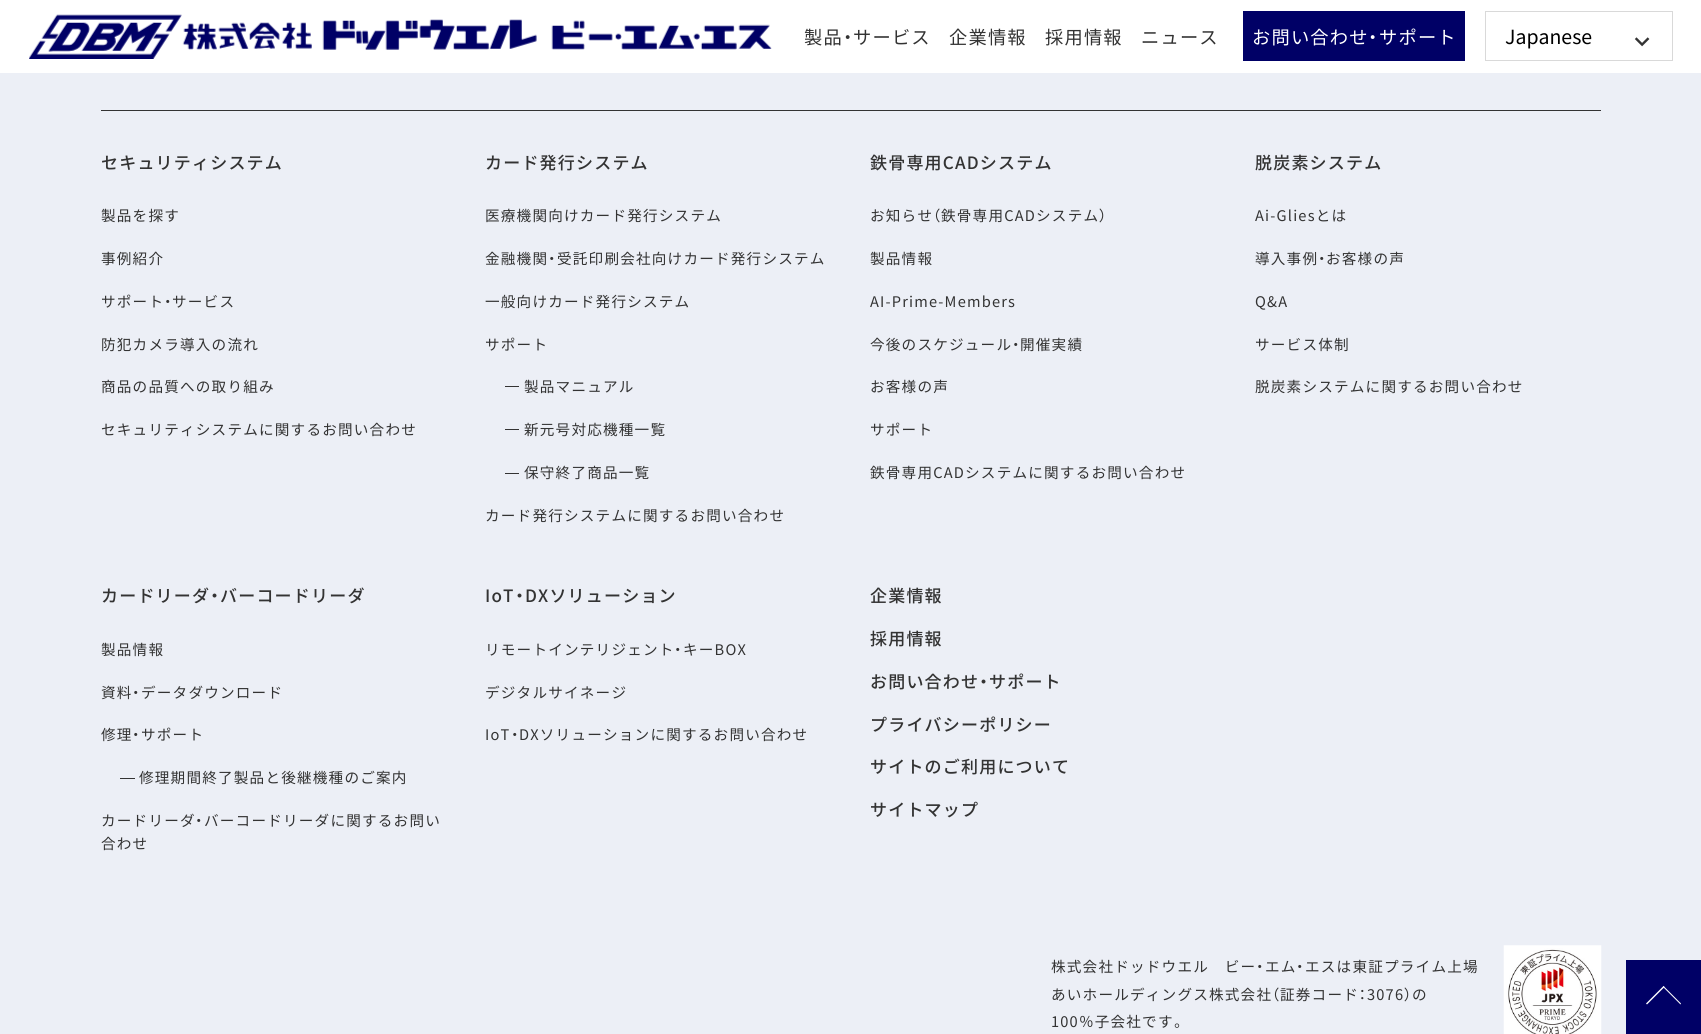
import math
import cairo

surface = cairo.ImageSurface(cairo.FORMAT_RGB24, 1701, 1034)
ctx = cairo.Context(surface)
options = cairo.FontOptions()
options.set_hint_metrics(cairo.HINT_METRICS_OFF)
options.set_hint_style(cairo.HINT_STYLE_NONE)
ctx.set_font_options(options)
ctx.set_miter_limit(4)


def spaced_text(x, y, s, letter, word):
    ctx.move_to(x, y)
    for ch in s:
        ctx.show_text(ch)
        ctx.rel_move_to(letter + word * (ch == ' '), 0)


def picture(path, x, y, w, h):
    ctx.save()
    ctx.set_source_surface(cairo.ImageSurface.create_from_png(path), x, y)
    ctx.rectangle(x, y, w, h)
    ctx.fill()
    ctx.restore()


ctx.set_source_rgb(0.922, 0.937, 0.961)
ctx.paint()
ctx.set_source_rgb(1, 1, 1)
ctx.rectangle(0, 0, 1701, 73)
ctx.fill()
picture("img1.png", 29, 14, 743, 45)
ctx.select_font_face("Noto Sans JP")
ctx.set_font_size(18.25)
ctx.set_source_rgb(0.2, 0.2, 0.2)
spaced_text(804, 44, "製品", 1.2, 0)
ctx.select_font_face("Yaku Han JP")
spaced_text(843, 44, "・", 1.2, 0)
ctx.select_font_face("Noto Sans JP")
spaced_text(853, 44, "サービス", 1.2, 0)
spaced_text(949, 44, "企業情報", 1.2, 0)
spaced_text(1045, 44, "採用情報", 1.2, 0)
spaced_text(1141, 44, "ニュース", 1.2, 0)
ctx.set_source_rgb(0, 0, 0.4)
ctx.rectangle(1243, 11, 222, 50)
ctx.fill()
ctx.set_source_rgb(1, 1, 1)
spaced_text(1252, 44, "お問い合わせ", 1.2, 0)
ctx.select_font_face("Yaku Han JP")
spaced_text(1368, 44, "・", 1.2, 0)
ctx.select_font_face("Noto Sans JP")
spaced_text(1379, 44, "サポート", 1.2, 0)
ctx.rectangle(1485.5, 11.5, 187, 49)
ctx.set_source_rgb(0.851, 0.851, 0.851)
ctx.set_line_width(1)
ctx.stroke()
ctx.set_font_size(19.5)
ctx.set_source_rgb(0, 0, 0)
ctx.move_to(1505, 44)
ctx.show_text("Japanese")
picture("img2.png", 1634, 37, 16, 10)
ctx.set_source_rgb(0.2, 0.2, 0.2)
ctx.rectangle(101, 110, 1500, 1)
ctx.fill()
ctx.select_font_face("Noto Sans JP Medium")
ctx.set_font_size(17)
spaced_text(101, 169, "セキュリティシステム", 1.2, 0)
ctx.select_font_face("Noto Sans JP")
ctx.set_font_size(14.6)
spaced_text(101, 221, "製品を探す", 1.2, 0)
spaced_text(101, 264, "事例紹介", 1.2, 0)
spaced_text(101, 307, "サポート", 1.2, 0)
ctx.select_font_face("Yaku Han JP")
spaced_text(164, 307, "・", 1.2, 0)
ctx.select_font_face("Noto Sans JP")
spaced_text(172, 307, "サービス", 1.2, 0)
spaced_text(101, 350, "防犯カメラ導入の流れ", 1.2, 0)
spaced_text(101, 392, "商品の品質への取り組み", 1.2, 0)
spaced_text(101, 435, "セキュリティシステムに関するお問い合わせ", 1.2, 0)
ctx.select_font_face("Noto Sans JP Medium")
ctx.set_font_size(17)
spaced_text(485, 169, "カード発行システム", 1.2, 0)
ctx.select_font_face("Noto Sans JP")
ctx.set_font_size(14.6)
spaced_text(485, 221, "医療機関向けカード発行システム", 1.2, 0)
spaced_text(485, 264, "金融機関", 1.2, 0)
ctx.select_font_face("Yaku Han JP")
spaced_text(548, 264, "・", 1.2, 0)
ctx.select_font_face("Noto Sans JP")
spaced_text(557, 264, "受託印刷会社向けカード発行システム", 1.2, 0)
spaced_text(485, 307, "一般向けカード発行システム", 1.2, 0)
spaced_text(485, 350, "サポート", 1.2, 0)
ctx.rectangle(505, 386, 14, 1)
ctx.fill()
spaced_text(524, 392, "製品マニュアル", 1.2, 0)
ctx.rectangle(505, 429, 14, 1)
ctx.fill()
spaced_text(524, 435, "新元号対応機種一覧", 1.2, 0)
ctx.rectangle(505, 473, 14, 1)
ctx.fill()
spaced_text(524, 478, "保守終了商品一覧", 1.2, 0)
spaced_text(485, 521, "カード発行システムに関するお問い合わせ", 1.2, 0)
ctx.select_font_face("Noto Sans JP Medium")
ctx.set_font_size(17)
spaced_text(870, 169, "鉄骨専用CADシステム", 1.2, 0)
ctx.select_font_face("Noto Sans JP")
ctx.set_font_size(14.6)
spaced_text(870, 221, "お知らせ", 1.2, 0)
ctx.select_font_face("Yaku Han JP")
spaced_text(933, 221, "（", 1.2, 0)
ctx.select_font_face("Noto Sans JP")
spaced_text(941, 221, "鉄骨専用CADシステム", 1.2, 0)
ctx.select_font_face("Yaku Han JP")
spaced_text(1099, 221, "）", 1.2, 0)
ctx.select_font_face("Noto Sans JP")
spaced_text(870, 264, "製品情報", 1.2, 0)
spaced_text(870, 307, "AI-Prime-Members", 1.2, 0)
spaced_text(870, 350, "今後のスケジュール", 1.2, 0)
ctx.select_font_face("Yaku Han JP")
spaced_text(1012, 350, "・", 1.2, 0)
ctx.select_font_face("Noto Sans JP")
spaced_text(1020, 350, "開催実績", 1.2, 0)
spaced_text(870, 392, "お客様の声", 1.2, 0)
spaced_text(870, 435, "サポート", 1.2, 0)
spaced_text(870, 478, "鉄骨専用CADシステムに関するお問い合わせ", 1.2, 0)
ctx.select_font_face("Noto Sans JP Medium")
ctx.set_font_size(17)
spaced_text(1255, 169, "脱炭素システム", 1.2, 0)
ctx.select_font_face("Noto Sans JP")
ctx.set_font_size(14.6)
spaced_text(1255, 221, "Ai-Gliesとは", 1.2, 0)
spaced_text(1255, 264, "導入事例", 1.2, 0)
ctx.select_font_face("Yaku Han JP")
spaced_text(1318, 264, "・", 1.2, 0)
ctx.select_font_face("Noto Sans JP")
spaced_text(1326, 264, "お客様の声", 1.2, 0)
spaced_text(1255, 307, "Q&A", 1.2, 0)
spaced_text(1255, 350, "サービス体制", 1.2, 0)
spaced_text(1255, 392, "脱炭素システムに関するお問い合わせ", 1.2, 0)
ctx.select_font_face("Noto Sans JP Medium")
ctx.set_font_size(17)
spaced_text(101, 602, "カードリーダ", 1.2, 0)
ctx.select_font_face("Yaku Han JP Medium")
spaced_text(210, 602, "・", 1.2, 0)
ctx.select_font_face("Noto Sans JP Medium")
spaced_text(220, 602, "バーコードリーダ", 1.2, 0)
ctx.select_font_face("Noto Sans JP")
ctx.set_font_size(14.6)
spaced_text(101, 655, "製品情報", 1.2, 0)
spaced_text(101, 698, "資料", 1.2, 0)
ctx.select_font_face("Yaku Han JP")
spaced_text(132, 698, "・", 1.2, 0)
ctx.select_font_face("Noto Sans JP")
spaced_text(141, 698, "データダウンロード", 1.2, 0)
spaced_text(101, 740, "修理", 1.2, 0)
ctx.select_font_face("Yaku Han JP")
spaced_text(132, 740, "・", 1.2, 0)
ctx.select_font_face("Noto Sans JP")
spaced_text(141, 740, "サポート", 1.2, 0)
ctx.rectangle(120, 778, 15, 1)
ctx.fill()
spaced_text(139, 783, "修理期間終了製品と後継機種のご案内", 1.2, 0)
spaced_text(101, 826, "カードリーダ", 1.2, 0)
ctx.select_font_face("Yaku Han JP")
spaced_text(195, 826, "・", 1.2, 0)
ctx.select_font_face("Noto Sans JP")
spaced_text(204, 826, "バーコードリーダに関するお問い", 1.2, 0)
spaced_text(101, 849, "合わせ", 1.2, 0)
ctx.select_font_face("Noto Sans JP Medium")
ctx.set_font_size(17)
spaced_text(485, 602, "IoT", 1.2, 0)
ctx.select_font_face("Yaku Han JP Medium")
spaced_text(515, 602, "・", 1.2, 0)
ctx.select_font_face("Noto Sans JP Medium")
spaced_text(525, 602, "DXソリューション", 1.2, 0)
ctx.select_font_face("Noto Sans JP")
ctx.set_font_size(14.6)
spaced_text(485, 655, "リモートインテリジェント", 1.2, 0)
ctx.select_font_face("Yaku Han JP")
spaced_text(674, 655, "・", 1.2, 0)
ctx.select_font_face("Noto Sans JP")
spaced_text(683, 655, "キーBOX", 1.2, 0)
spaced_text(485, 698, "デジタルサイネージ", 1.2, 0)
spaced_text(485, 740, "IoT", 1.2, 0)
ctx.select_font_face("Yaku Han JP")
spaced_text(511, 740, "・", 1.2, 0)
ctx.select_font_face("Noto Sans JP")
spaced_text(519, 740, "DXソリューションに関するお問い合わせ", 1.2, 0)
ctx.select_font_face("Noto Sans JP Medium")
ctx.set_font_size(17)
spaced_text(870, 602, "企業情報", 1.2, 0)
spaced_text(870, 645, "採用情報", 1.2, 0)
spaced_text(870, 688, "お問い合わせ", 1.2, 0)
ctx.select_font_face("Yaku Han JP Medium")
spaced_text(979, 688, "・", 1.2, 0)
ctx.select_font_face("Noto Sans JP Medium")
spaced_text(989, 688, "サポート", 1.2, 0)
spaced_text(870, 731, "プライバシーポリシー", 1.2, 0)
spaced_text(870, 773, "サイトのご利用について", 1.2, 0)
spaced_text(870, 816, "サイトマップ", 1.2, 0)
ctx.select_font_face("Noto Sans JP")
ctx.set_font_size(14.6)
spaced_text(1051, 972, "株式会社ドッドウエル　ビー", 1.2, 0)
ctx.select_font_face("Yaku Han JP")
spaced_text(1256, 972, "・", 1.2, 0)
ctx.select_font_face("Noto Sans JP")
spaced_text(1265, 972, "エム", 1.2, 0)
ctx.select_font_face("Yaku Han JP")
spaced_text(1296, 972, "・", 1.2, 0)
ctx.select_font_face("Noto Sans JP")
spaced_text(1305, 972, "エスは東証プライム上場", 1.2, 0)
spaced_text(1051, 1000, "あいホールディングス株式会社", 1.2, 0)
ctx.select_font_face("Yaku Han JP")
spaced_text(1272, 1000, "（", 1.2, 0)
ctx.select_font_face("Noto Sans JP")
spaced_text(1280, 1000, "証券コード", 1.2, 0)
ctx.select_font_face("Yaku Han JP")
spaced_text(1359, 1000, "：", 1.2, 0)
ctx.select_font_face("Noto Sans JP")
spaced_text(1367, 1000, "3076", 1.2, 0)
ctx.select_font_face("Yaku Han JP")
spaced_text(1404, 1000, "）", 1.2, 0)
ctx.select_font_face("Noto Sans JP")
spaced_text(1412, 1000, "の", 1.2, 0)
spaced_text(1051, 1027, "100％子会社です", 1.2, 0)
ctx.select_font_face("Yaku Han JP")
spaced_text(1174, 1027, "。", 1.2, 0)
picture("img3.png", 1503, 945, 99, 89)
ctx.set_source_rgb(0, 0, 0.4)
ctx.rectangle(1626, 960, 75, 74)
ctx.fill()
ctx.set_source_rgb(1, 1, 1)
ctx.new_path()
ctx.move_to(1663.5, 986)
ctx.line_to(1681, 1003.5)
ctx.line_to(1680.5, 1004.5)
ctx.line_to(1663, 987)
ctx.close_path()
ctx.fill()
ctx.new_path()
ctx.move_to(1663.5, 986)
ctx.line_to(1664.5, 987)
ctx.line_to(1647, 1004.5)
ctx.line_to(1646, 1003.5)
ctx.close_path()
ctx.fill()
surface.write_to_png("page.png")
